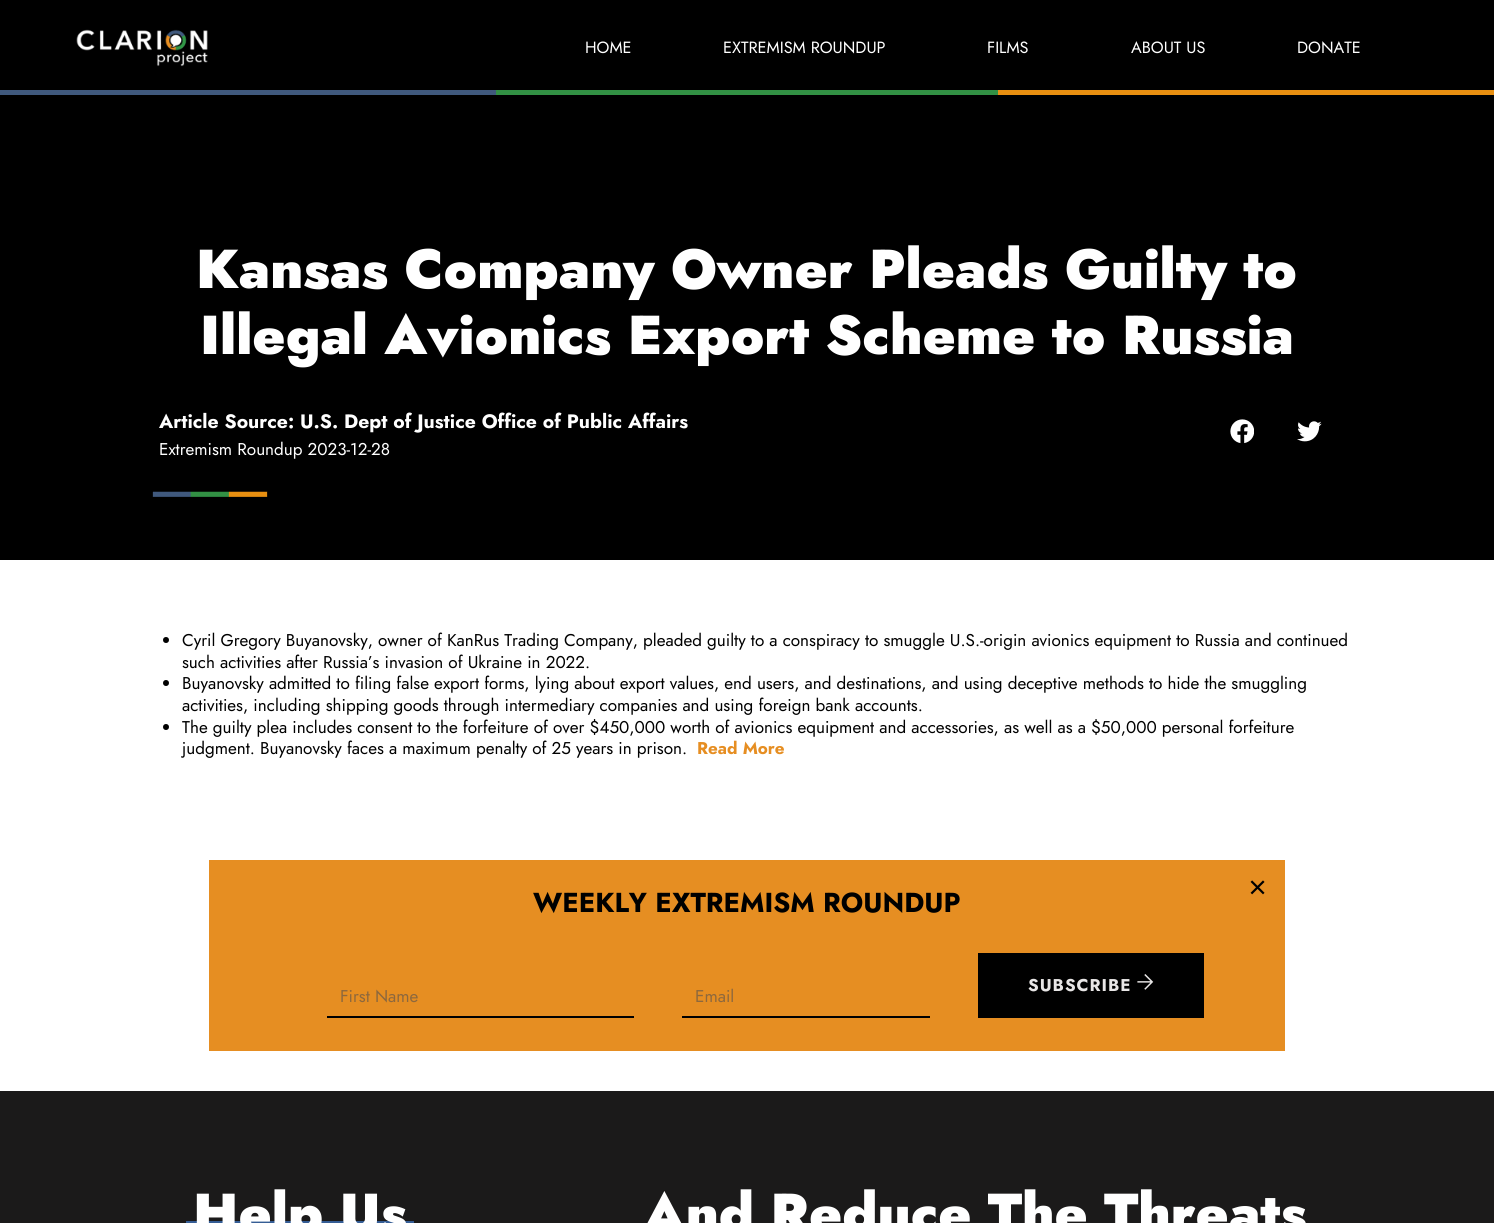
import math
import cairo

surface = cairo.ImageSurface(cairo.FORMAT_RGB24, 1494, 1223)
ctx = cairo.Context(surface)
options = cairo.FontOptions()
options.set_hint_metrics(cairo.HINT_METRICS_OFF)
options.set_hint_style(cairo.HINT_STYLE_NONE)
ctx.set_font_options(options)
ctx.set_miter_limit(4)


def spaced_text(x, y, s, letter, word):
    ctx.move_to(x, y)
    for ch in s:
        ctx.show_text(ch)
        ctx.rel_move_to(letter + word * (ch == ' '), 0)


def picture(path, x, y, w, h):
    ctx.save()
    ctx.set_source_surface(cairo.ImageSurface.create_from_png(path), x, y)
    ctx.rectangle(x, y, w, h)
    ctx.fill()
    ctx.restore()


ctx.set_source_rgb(1, 1, 1)
ctx.paint()
ctx.set_source_rgb(0, 0, 0)
ctx.rectangle(0, 0, 1494, 560)
ctx.fill()
picture("img1.png", 76, 29, 132, 38)
ctx.select_font_face("Jost")
ctx.set_font_size(16.25)
ctx.set_source_rgb(1, 1, 1)
ctx.move_to(585, 53)
ctx.show_text("HOME")
ctx.move_to(723, 53)
ctx.show_text("EXTREMISM ROUNDUP")
ctx.move_to(987, 53)
ctx.show_text("FILMS")
ctx.move_to(1131, 53)
ctx.show_text("ABOUT US")
ctx.move_to(1297, 53)
ctx.show_text("DONATE")
picture("img2.png", 0, 90, 1494, 5)
ctx.select_font_face("Jost Black")
ctx.set_font_size(54.75)
ctx.move_to(196, 288)
ctx.show_text("Kansas Company Owner Pleads Guilty to")
ctx.move_to(200, 354)
ctx.show_text("Illegal Avionics Export Scheme to Russia")
ctx.select_font_face("Jost", cairo.FONT_SLANT_NORMAL, cairo.FONT_WEIGHT_BOLD)
ctx.set_font_size(19.4)
ctx.move_to(159, 428)
ctx.show_text("Article Source: U.S. Dept of Justice Office of Public Affairs")
ctx.select_font_face("Jost")
ctx.set_font_size(17.05)
ctx.move_to(159, 455)
ctx.show_text("Extremism Roundup 2023-12-28")
picture("img3.png", 1230, 419, 24, 25)
picture("img4.png", 1297, 421, 25, 21)
picture("img5.png", 152, 491, 116, 6)
ctx.set_source_rgb(0, 0, 0)
ctx.arc(166, 640, 3, 0, 2 * math.pi)
ctx.fill()
ctx.move_to(182, 646)
ctx.show_text("Cyril Gregory Buyanovsky, owner of KanRus Trading Company, pleaded guilty to a conspiracy to smuggle U.S.-origin avionics equipment to Russia and continued")
ctx.move_to(182, 668)
ctx.show_text("such activities after Russia’s invasion of Ukraine in 2022.")
ctx.new_path()
ctx.arc(166, 683, 3, 0, 2 * math.pi)
ctx.fill()
ctx.move_to(182, 689)
ctx.show_text("Buyanovsky admitted to filing false export forms, lying about export values, end users, and destinations, and using deceptive methods to hide the smuggling")
ctx.move_to(182, 711)
ctx.show_text("activities, including shipping goods through intermediary companies and using foreign bank accounts.")
ctx.new_path()
ctx.arc(166, 727, 3, 0, 2 * math.pi)
ctx.fill()
ctx.move_to(182, 733)
ctx.show_text("The guilty plea includes consent to the forfeiture of over $450,000 worth of avionics equipment and accessories, as well as a $50,000 personal forfeiture")
ctx.move_to(182, 754)
ctx.show_text("judgment. Buyanovsky faces a maximum penalty of 25 years in prison.")
ctx.select_font_face("Jost", cairo.FONT_SLANT_NORMAL, cairo.FONT_WEIGHT_BOLD)
ctx.set_source_rgb(0.902, 0.557, 0.133)
ctx.move_to(697, 754)
ctx.show_text("Read More")
ctx.rectangle(209, 860, 1076, 191)
ctx.fill()
picture("img6.png", 1250, 880, 15, 15)
ctx.set_font_size(27.4)
ctx.set_source_rgb(0, 0, 0)
ctx.move_to(533, 912)
ctx.show_text("WEEKLY EXTREMISM ROUNDUP")
ctx.rectangle(978, 953, 226, 65)
ctx.fill()
ctx.set_font_size(17.05)
ctx.set_source_rgb(0.91, 0.902, 0.902)
spaced_text(1028, 991, "SUBSCRIBE", 1, 0)
picture("img7.png", 1137, 974, 17, 16)
ctx.set_source_rgb(0, 0, 0)
ctx.rectangle(327, 1016, 307, 2)
ctx.fill()
ctx.select_font_face("Jost")
ctx.set_source_rgb(0.553, 0.408, 0.239)
ctx.move_to(340, 1002)
ctx.show_text("First Name")
ctx.set_source_rgb(0, 0, 0)
ctx.rectangle(682, 1016, 248, 2)
ctx.fill()
ctx.set_source_rgb(0.553, 0.408, 0.239)
ctx.move_to(695, 1002)
ctx.show_text("Email")
ctx.set_source_rgb(0.106, 0.102, 0.102)
ctx.rectangle(0, 1091, 1494, 132)
ctx.fill()
ctx.set_source_rgb(0.208, 0.365, 0.584)
ctx.rectangle(186, 1221, 228, 2)
ctx.fill()
ctx.select_font_face("Jost Black")
ctx.set_font_size(54.75)
ctx.set_source_rgb(1, 1, 1)
ctx.move_to(193, 1232)
ctx.show_text("Help Us")
ctx.move_to(643, 1232)
ctx.show_text("And Reduce The Threats")
surface.write_to_png("page.png")
